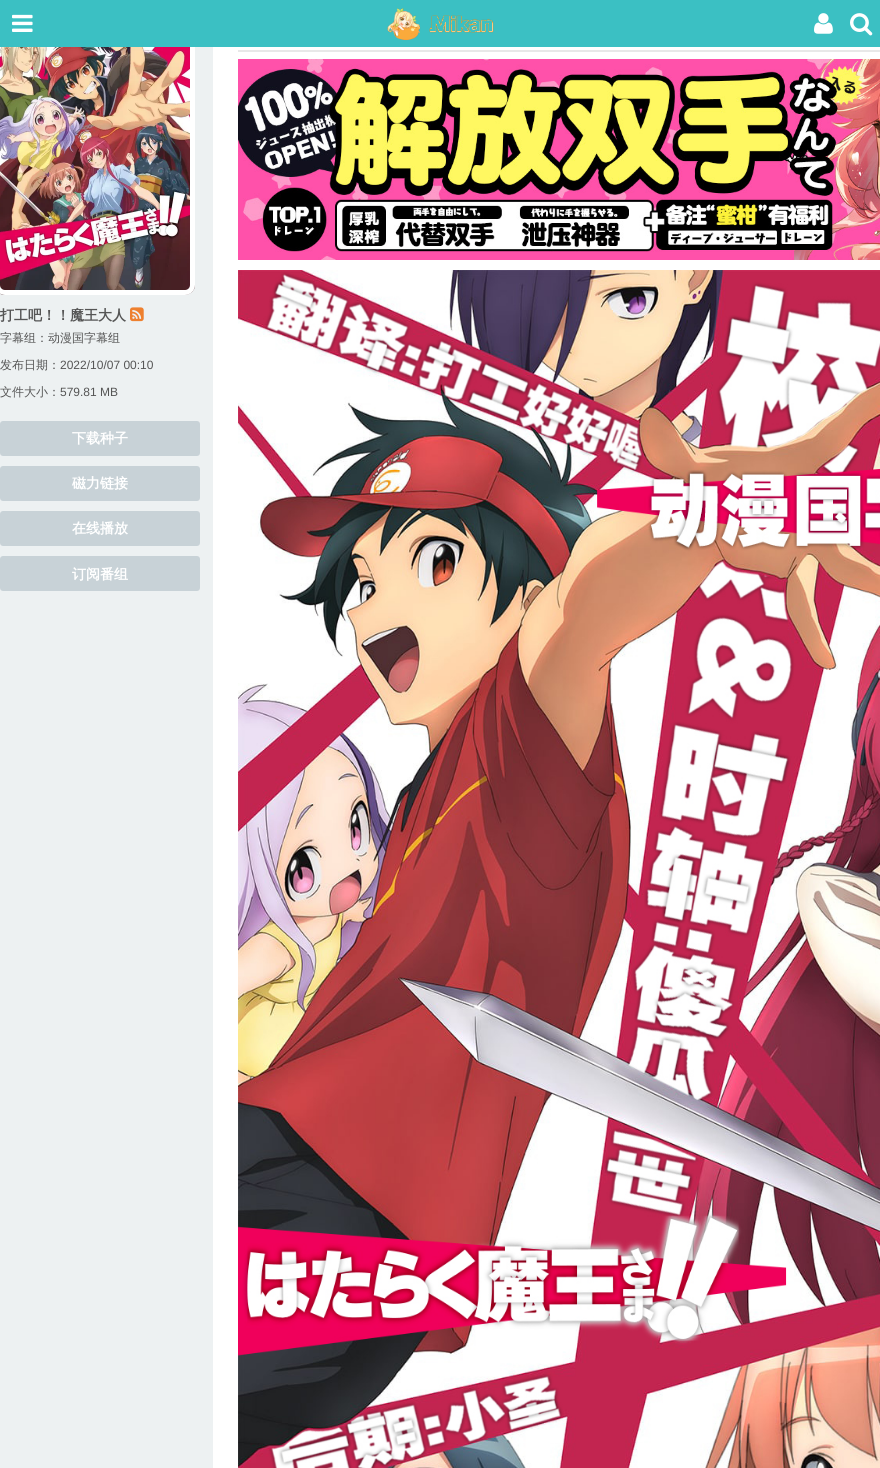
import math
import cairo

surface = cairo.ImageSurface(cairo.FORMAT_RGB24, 880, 1468)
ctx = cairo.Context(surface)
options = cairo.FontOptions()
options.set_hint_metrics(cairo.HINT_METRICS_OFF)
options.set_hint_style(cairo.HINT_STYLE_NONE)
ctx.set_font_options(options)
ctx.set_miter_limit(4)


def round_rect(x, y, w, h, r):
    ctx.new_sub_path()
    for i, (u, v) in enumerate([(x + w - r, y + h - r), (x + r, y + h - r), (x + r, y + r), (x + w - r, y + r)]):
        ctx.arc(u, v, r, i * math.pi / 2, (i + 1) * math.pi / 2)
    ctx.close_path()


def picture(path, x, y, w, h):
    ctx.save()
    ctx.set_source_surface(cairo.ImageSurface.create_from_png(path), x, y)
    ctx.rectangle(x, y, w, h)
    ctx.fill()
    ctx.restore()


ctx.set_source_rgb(0.929, 0.945, 0.949)
ctx.paint()
picture("img6.png", 0, 47, 195, 248)
round_rect(-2.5, 17.5, 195, 275, 7.5)
ctx.set_source_rgb(1, 1, 1)
ctx.set_line_width(5)
ctx.stroke()
ctx.set_source_rgb(0.231, 0.753, 0.765)
ctx.rectangle(0, 0, 880, 47)
ctx.fill()
picture("img1.png", 12, 14, 21, 18)
picture("img2.png", 387, 8, 34, 33)
picture("img3.png", 429, 15, 65, 18)
picture("img4.png", 814, 13, 19, 21)
picture("img5.png", 850, 13, 23, 23)
ctx.select_font_face("WenQuanYi Zen Hei", cairo.FONT_SLANT_NORMAL, cairo.FONT_WEIGHT_BOLD)
ctx.set_font_size(14)
ctx.set_source_rgb(0.333, 0.333, 0.333)
ctx.move_to(0, 320)
ctx.show_text("打工吧！！魔王大人")
picture("img7.png", 130, 307, 14, 15)
ctx.select_font_face("WenQuanYi Zen Hei Medium")
ctx.set_font_size(12)
ctx.move_to(0, 342)
ctx.show_text("字幕组：动漫国字幕组")
ctx.move_to(0, 369)
ctx.show_text("发布日期：")
ctx.select_font_face("Liberation Sans")
ctx.move_to(60, 369)
ctx.show_text("2022/10/07 00:10")
ctx.select_font_face("WenQuanYi Zen Hei Medium")
ctx.move_to(0, 396)
ctx.show_text("文件大小：")
ctx.select_font_face("Liberation Sans")
ctx.move_to(60, 396)
ctx.show_text("579.81 MB")
ctx.set_source_rgb(0.784, 0.824, 0.843)
round_rect(0, 421, 200, 35, 3)
ctx.fill()
ctx.select_font_face("WenQuanYi Zen Hei", cairo.FONT_SLANT_NORMAL, cairo.FONT_WEIGHT_BOLD)
ctx.set_font_size(14)
ctx.set_source_rgb(1, 1, 1)
ctx.move_to(72, 443)
ctx.show_text("下载种子")
ctx.set_source_rgb(0.784, 0.824, 0.843)
round_rect(0, 466, 200, 35, 3)
ctx.fill()
ctx.set_source_rgb(1, 1, 1)
ctx.move_to(72, 488)
ctx.show_text("磁力链接")
ctx.set_source_rgb(0.784, 0.824, 0.843)
round_rect(0, 511, 200, 35, 3)
ctx.fill()
ctx.set_source_rgb(1, 1, 1)
ctx.move_to(72, 533)
ctx.show_text("在线播放")
ctx.set_source_rgb(0.784, 0.824, 0.843)
round_rect(0, 556, 200, 35, 3)
ctx.fill()
ctx.set_source_rgb(1, 1, 1)
ctx.move_to(72, 579)
ctx.show_text("订阅番组")
ctx.rectangle(213, 47, 667, 1421)
ctx.fill()
ctx.set_source_rgb(0.91, 0.91, 0.91)
ctx.rectangle(238, 50, 642, 2)
ctx.fill()
picture("img8.png", 238, 59, 642, 201)
picture("img9.png", 238, 270, 642, 1198)
surface.write_to_png("page.png")
